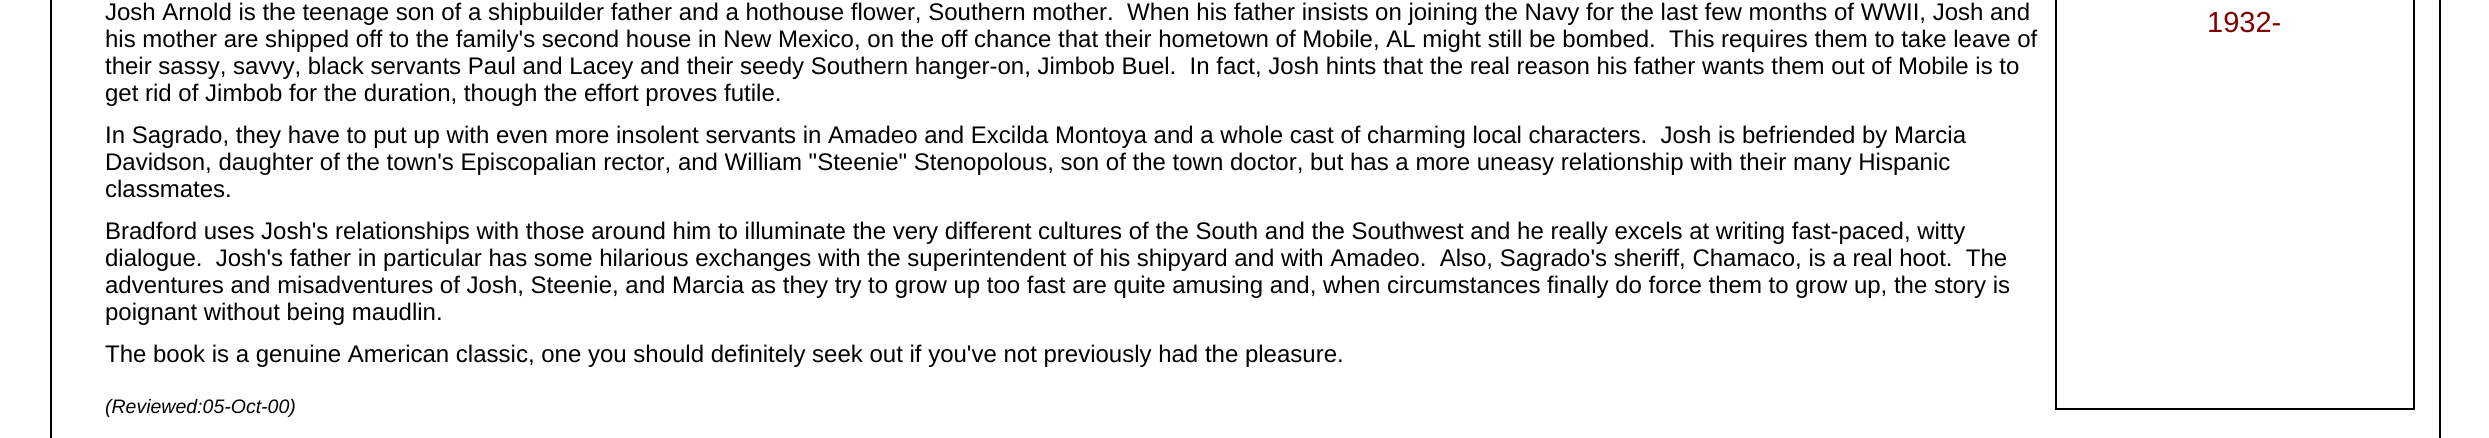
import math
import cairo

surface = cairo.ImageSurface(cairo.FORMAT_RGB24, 2489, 438)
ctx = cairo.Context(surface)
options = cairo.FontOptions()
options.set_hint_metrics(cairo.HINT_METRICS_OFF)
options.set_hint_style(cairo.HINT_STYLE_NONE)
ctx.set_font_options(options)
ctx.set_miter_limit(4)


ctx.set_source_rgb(1, 1, 1)
ctx.paint()
ctx.rectangle(51, -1, 2389, 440)
ctx.set_source_rgb(0, 0, 0)
ctx.stroke()
ctx.select_font_face("Liberation Sans")
ctx.set_font_size(24)
ctx.move_to(105, 20)
ctx.show_text("Josh Arnold is the teenage son of a shipbuilder father and a hothouse flower, Southern mother.  When his father insists on joining the Navy for the last few months of WWII, Josh and")
ctx.move_to(105, 47)
ctx.show_text("his mother are shipped off to the family's second house in New Mexico, on the off chance that their hometown of Mobile, AL might still be bombed.  This requires them to take leave of")
ctx.move_to(105, 74)
ctx.show_text("their sassy, savvy, black servants Paul and Lacey and their seedy Southern hanger-on, Jimbob Buel.  In fact, Josh hints that the real reason his father wants them out of Mobile is to")
ctx.move_to(105, 101)
ctx.show_text("get rid of Jimbob for the duration, though the effort proves futile.")
ctx.move_to(105, 143)
ctx.show_text("In Sagrado, they have to put up with even more insolent servants in Amadeo and Excilda Montoya and a whole cast of charming local characters.  Josh is befriended by Marcia")
ctx.move_to(105, 170)
ctx.show_text("Davidson, daughter of the town's Episcopalian rector, and William \"Steenie\" Stenopolous, son of the town doctor, but has a more uneasy relationship with their many Hispanic")
ctx.move_to(105, 197)
ctx.show_text("classmates.")
ctx.move_to(105, 239)
ctx.show_text("Bradford uses Josh's relationships with those around him to illuminate the very different cultures of the South and the Southwest and he really excels at writing fast-paced, witty")
ctx.move_to(105, 266)
ctx.show_text("dialogue.  Josh's father in particular has some hilarious exchanges with the superintendent of his shipyard and with Amadeo.  Also, Sagrado's sheriff, Chamaco, is a real hoot.  The")
ctx.move_to(105, 293)
ctx.show_text("adventures and misadventures of Josh, Steenie, and Marcia as they try to grow up too fast are quite amusing and, when circumstances finally do force them to grow up, the story is")
ctx.move_to(105, 320)
ctx.show_text("poignant without being maudlin.")
ctx.move_to(105, 362)
ctx.show_text("The book is a genuine American classic, one you should definitely seek out if you've not previously had the pleasure.")
ctx.select_font_face("Liberation Sans", cairo.FONT_SLANT_ITALIC)
ctx.set_font_size(19.5)
ctx.move_to(105, 413)
ctx.show_text("(Reviewed:05-Oct-00)")
ctx.rectangle(2056, -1, 358, 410)
ctx.stroke()
ctx.select_font_face("Liberation Sans")
ctx.set_font_size(29)
ctx.set_source_rgb(0.502, 0, 0)
ctx.move_to(2207, 32)
ctx.show_text("1932-")
surface.write_to_png("page.png")
